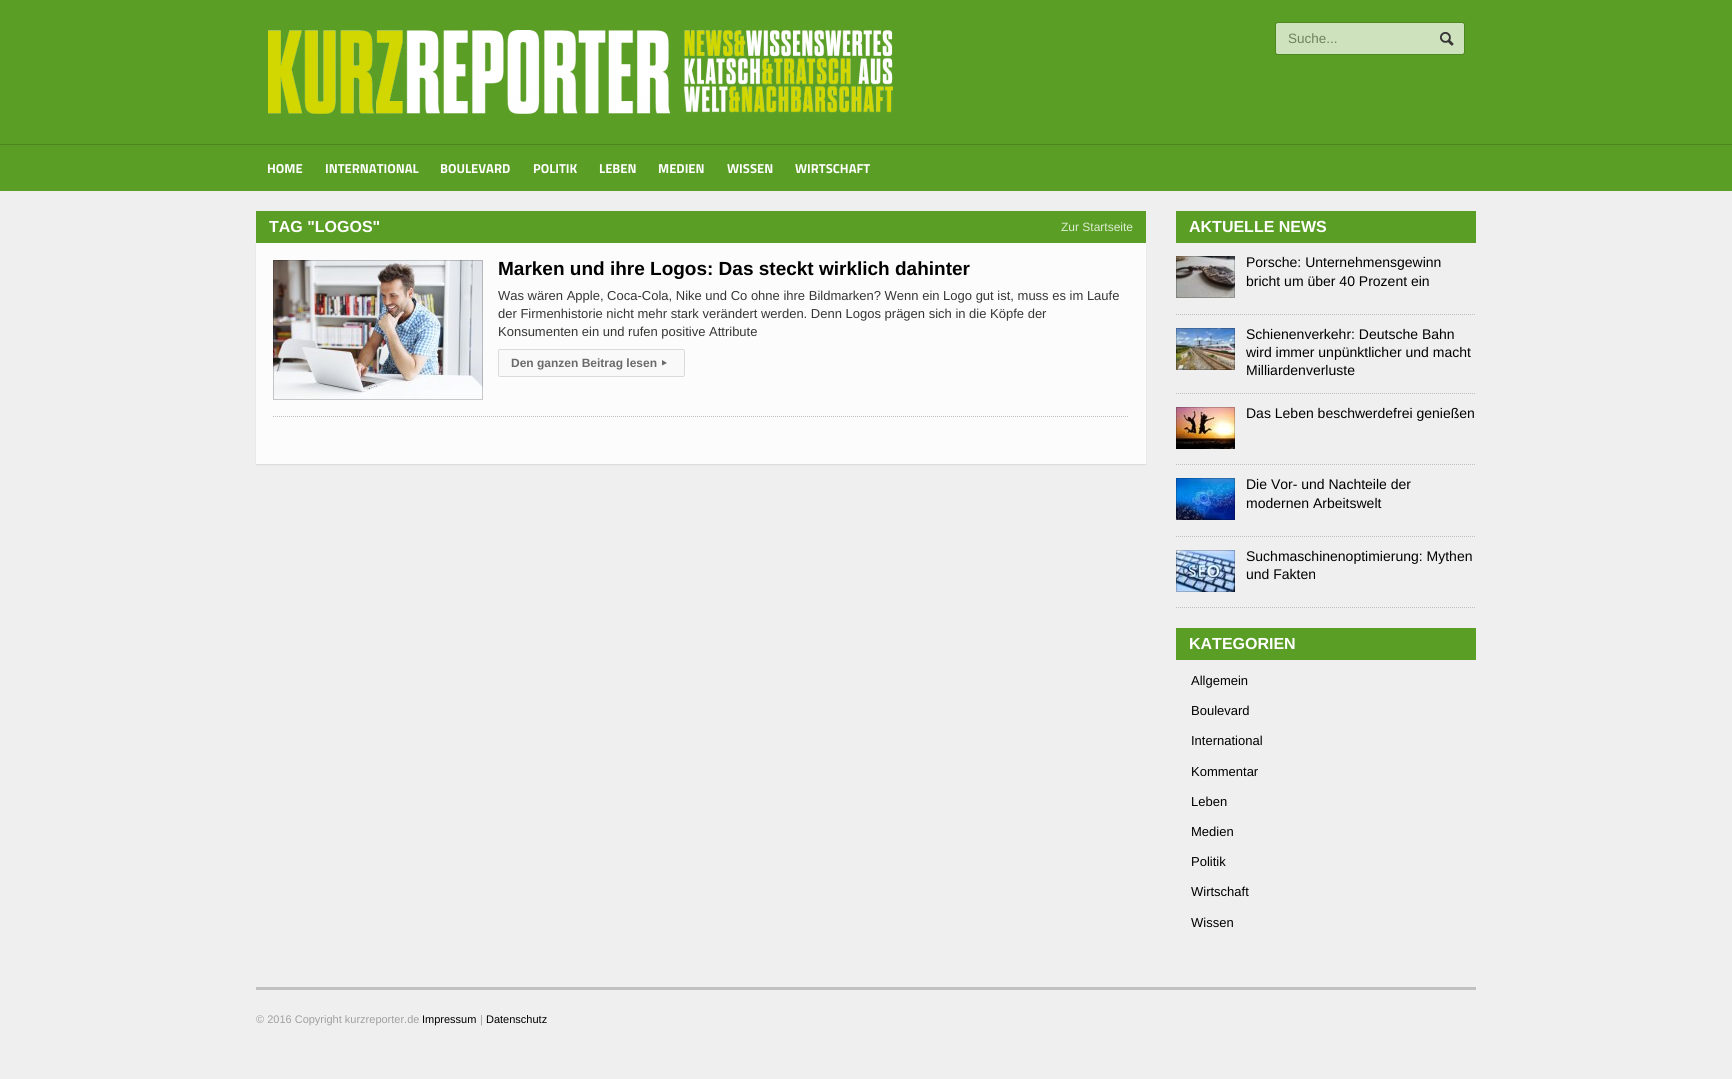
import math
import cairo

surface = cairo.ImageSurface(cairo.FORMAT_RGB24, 1732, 1079)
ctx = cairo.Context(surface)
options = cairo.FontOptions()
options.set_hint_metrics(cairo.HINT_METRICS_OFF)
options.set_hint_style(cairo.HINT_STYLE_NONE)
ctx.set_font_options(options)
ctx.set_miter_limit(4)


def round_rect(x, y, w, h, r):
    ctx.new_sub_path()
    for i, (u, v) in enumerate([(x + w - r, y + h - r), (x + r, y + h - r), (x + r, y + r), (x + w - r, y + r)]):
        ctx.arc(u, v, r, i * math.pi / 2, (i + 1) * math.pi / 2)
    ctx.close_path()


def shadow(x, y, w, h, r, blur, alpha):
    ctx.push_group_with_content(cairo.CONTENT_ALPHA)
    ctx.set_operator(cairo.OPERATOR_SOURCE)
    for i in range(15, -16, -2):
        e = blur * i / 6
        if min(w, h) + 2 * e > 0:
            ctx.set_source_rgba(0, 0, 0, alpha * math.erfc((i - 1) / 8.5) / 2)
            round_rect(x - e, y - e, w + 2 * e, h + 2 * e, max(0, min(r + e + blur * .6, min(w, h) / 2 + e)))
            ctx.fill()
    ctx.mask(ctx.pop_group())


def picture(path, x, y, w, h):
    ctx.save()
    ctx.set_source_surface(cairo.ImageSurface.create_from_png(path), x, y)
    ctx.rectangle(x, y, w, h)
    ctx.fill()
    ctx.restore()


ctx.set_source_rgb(0.941, 0.937, 0.937)
ctx.paint()
ctx.set_source_rgb(0.353, 0.62, 0.145)
ctx.rectangle(0, 0, 1732, 191)
ctx.fill()
picture("img1.png", 268, 30, 625, 84)
round_rect(1275.5, 22.5, 189, 32, 2.5)
ctx.set_source_rgb(0.302, 0.533, 0.125)
ctx.set_line_width(1)
ctx.stroke()
ctx.set_source_rgb(0.808, 0.886, 0.745)
round_rect(1276, 23, 188, 31, 2)
ctx.fill()
ctx.select_font_face("Liberation Sans")
ctx.set_font_size(13.5)
ctx.set_source_rgb(0.427, 0.506, 0.365)
ctx.move_to(1288, 43)
ctx.show_text("Suche...")
picture("img2.png", 1440, 32, 14, 14)
ctx.set_source_rgb(0.302, 0.525, 0.122)
ctx.rectangle(0, 144, 1732, 1)
ctx.fill()
ctx.select_font_face("Titillium Web", cairo.FONT_SLANT_NORMAL, cairo.FONT_WEIGHT_BOLD)
ctx.set_font_size(13)
ctx.set_source_rgb(1, 1, 1)
ctx.move_to(267, 173)
ctx.show_text("HOME")
ctx.move_to(325, 173)
ctx.show_text("INTERNATIONAL")
ctx.move_to(440, 173)
ctx.show_text("BOULEVARD")
ctx.move_to(533, 173)
ctx.show_text("POLITIK")
ctx.move_to(599, 173)
ctx.show_text("LEBEN")
ctx.move_to(658, 173)
ctx.show_text("MEDIEN")
ctx.move_to(727, 173)
ctx.show_text("WISSEN")
ctx.move_to(795, 173)
ctx.show_text("WIRTSCHAFT")
ctx.set_source_rgb(0.353, 0.62, 0.145)
ctx.rectangle(256, 211, 890, 32)
ctx.fill()
ctx.select_font_face("Liberation Sans", cairo.FONT_SLANT_NORMAL, cairo.FONT_WEIGHT_BOLD)
ctx.set_font_size(16)
ctx.set_source_rgb(1, 1, 1)
ctx.move_to(269, 232)
ctx.show_text("TAG \"LOGOS\"")
ctx.select_font_face("Liberation Sans")
ctx.set_font_size(12)
ctx.set_source_rgb(0.871, 0.925, 0.827)
ctx.move_to(1061, 231)
ctx.show_text("Zur Startseite")
ctx.set_source_rgb(0, 0, 0)
shadow(256, 244, 890, 221, 0, 0.5, 0.08)
ctx.set_source_rgb(0.988, 0.988, 0.988)
ctx.rectangle(256, 243, 890, 221)
ctx.fill()
ctx.new_path()
ctx.move_to(273, 416.5)
ctx.line_to(1129, 416.5)
ctx.set_source_rgb(0.753, 0.749, 0.749)
ctx.set_dash([1, 1])
ctx.stroke()
picture("img3.png", 273, 260, 210, 140)
ctx.rectangle(273.5, 260.5, 209, 139)
ctx.set_source_rgba(0, 0, 0, 0.2)
ctx.set_dash([])
ctx.stroke()
ctx.select_font_face("Liberation Sans", cairo.FONT_SLANT_NORMAL, cairo.FONT_WEIGHT_BOLD)
ctx.set_font_size(19)
ctx.set_source_rgb(0, 0, 0)
ctx.move_to(498, 275)
ctx.show_text("Marken und ihre Logos: Das steckt wirklich dahinter")
ctx.select_font_face("Liberation Sans")
ctx.set_font_size(13)
ctx.set_source_rgb(0.212, 0.212, 0.208)
ctx.move_to(498, 300)
ctx.show_text("Was wären Apple, Coca-Cola, Nike und Co ohne ihre Bildmarken? Wenn ein Logo gut ist, muss es im Laufe")
ctx.move_to(498, 318)
ctx.show_text("der Firmenhistorie nicht mehr stark verändert werden. Denn Logos prägen sich in die Köpfe der")
ctx.move_to(498, 336)
ctx.show_text("Konsumenten ein und rufen positive Attribute")
ctx.set_source_rgb(0.976, 0.976, 0.976)
round_rect(498.5, 349.5, 186, 27, 1.5)
ctx.fill_preserve()
ctx.set_source_rgb(0.859, 0.859, 0.859)
ctx.stroke()
ctx.select_font_face("Liberation Sans", cairo.FONT_SLANT_NORMAL, cairo.FONT_WEIGHT_BOLD)
ctx.set_font_size(12)
ctx.set_source_rgb(0.42, 0.42, 0.42)
ctx.move_to(511, 367)
ctx.show_text("Den ganzen Beitrag lesen")
ctx.new_path()
ctx.move_to(662, 360)
ctx.line_to(667, 363)
ctx.line_to(662, 365.5)
ctx.close_path()
ctx.fill()
ctx.set_source_rgb(0.353, 0.62, 0.145)
ctx.rectangle(1176, 211, 300, 32)
ctx.fill()
ctx.set_font_size(16)
ctx.set_source_rgb(1, 1, 1)
ctx.move_to(1189, 232)
ctx.show_text("AKTUELLE NEWS")
ctx.new_path()
ctx.move_to(1176, 607.5)
ctx.line_to(1476, 607.5)
ctx.set_source_rgb(0.753, 0.749, 0.749)
ctx.set_dash([1, 1])
ctx.stroke()
ctx.new_path()
ctx.move_to(1176, 314.5)
ctx.line_to(1476, 314.5)
ctx.stroke()
picture("img4.png", 1176, 256, 59, 42)
ctx.rectangle(1176.5, 256.5, 58, 41)
ctx.set_source_rgba(0, 0, 0, 0.2)
ctx.set_dash([])
ctx.stroke()
ctx.select_font_face("Liberation Sans")
ctx.set_font_size(14)
ctx.set_source_rgb(0, 0, 0)
ctx.move_to(1246, 267)
ctx.show_text("Porsche: Unternehmensgewinn")
ctx.move_to(1246, 286)
ctx.show_text("bricht um über 40 Prozent ein")
ctx.new_path()
ctx.move_to(1176, 393.5)
ctx.line_to(1476, 393.5)
ctx.set_source_rgb(0.753, 0.749, 0.749)
ctx.set_dash([1, 1])
ctx.stroke()
picture("img5.png", 1176, 328, 59, 42)
ctx.rectangle(1176.5, 328.5, 58, 41)
ctx.set_source_rgba(0, 0, 0, 0.2)
ctx.set_dash([])
ctx.stroke()
ctx.set_source_rgb(0, 0, 0)
ctx.move_to(1246, 339)
ctx.show_text("Schienenverkehr: Deutsche Bahn")
ctx.move_to(1246, 357)
ctx.show_text("wird immer unpünktlicher und macht")
ctx.move_to(1246, 375)
ctx.show_text("Milliardenverluste")
ctx.new_path()
ctx.move_to(1176, 464.5)
ctx.line_to(1476, 464.5)
ctx.set_source_rgb(0.753, 0.749, 0.749)
ctx.set_dash([1, 1])
ctx.stroke()
picture("img6.png", 1176, 407, 59, 42)
ctx.rectangle(1176.5, 407.5, 58, 41)
ctx.set_source_rgba(0, 0, 0, 0.2)
ctx.set_dash([])
ctx.stroke()
ctx.set_source_rgb(0, 0, 0)
ctx.move_to(1246, 418)
ctx.show_text("Das Leben beschwerdefrei genießen")
ctx.new_path()
ctx.move_to(1176, 536.5)
ctx.line_to(1476, 536.5)
ctx.set_source_rgb(0.753, 0.749, 0.749)
ctx.set_dash([1, 1])
ctx.stroke()
picture("img7.png", 1176, 478, 59, 42)
ctx.rectangle(1176.5, 478.5, 58, 41)
ctx.set_source_rgba(0, 0, 0, 0.2)
ctx.set_dash([])
ctx.stroke()
ctx.set_source_rgb(0, 0, 0)
ctx.move_to(1246, 489)
ctx.show_text("Die Vor- und Nachteile der")
ctx.move_to(1246, 508)
ctx.show_text("modernen Arbeitswelt")
picture("img8.png", 1176, 550, 59, 42)
ctx.rectangle(1176.5, 550.5, 58, 41)
ctx.set_source_rgba(0, 0, 0, 0.2)
ctx.stroke()
ctx.set_source_rgb(0, 0, 0)
ctx.move_to(1246, 561)
ctx.show_text("Suchmaschinenoptimierung: Mythen")
ctx.move_to(1246, 579)
ctx.show_text("und Fakten")
ctx.set_source_rgb(0.353, 0.62, 0.145)
ctx.rectangle(1176, 628, 300, 32)
ctx.fill()
ctx.select_font_face("Liberation Sans", cairo.FONT_SLANT_NORMAL, cairo.FONT_WEIGHT_BOLD)
ctx.set_font_size(16)
ctx.set_source_rgb(1, 1, 1)
ctx.move_to(1189, 649)
ctx.show_text("KATEGORIEN")
ctx.select_font_face("Liberation Sans")
ctx.set_font_size(13)
ctx.set_source_rgb(0, 0, 0)
ctx.move_to(1191, 685)
ctx.show_text("Allgemein")
ctx.move_to(1191, 715)
ctx.show_text("Boulevard")
ctx.move_to(1191, 745)
ctx.show_text("International")
ctx.move_to(1191, 776)
ctx.show_text("Kommentar")
ctx.move_to(1191, 806)
ctx.show_text("Leben")
ctx.move_to(1191, 836)
ctx.show_text("Medien")
ctx.move_to(1191, 866)
ctx.show_text("Politik")
ctx.move_to(1191, 896)
ctx.show_text("Wirtschaft")
ctx.move_to(1191, 927)
ctx.show_text("Wissen")
ctx.set_source_rgb(0.757, 0.757, 0.757)
ctx.rectangle(256, 987, 1220, 3)
ctx.fill()
ctx.set_font_size(11)
ctx.set_source_rgb(0.627, 0.627, 0.627)
ctx.move_to(256, 1023)
ctx.show_text("© 2016 Copyright kurzreporter.de")
ctx.set_source_rgb(0, 0, 0)
ctx.move_to(422, 1023)
ctx.show_text("Impressum")
ctx.set_source_rgb(0.627, 0.627, 0.627)
ctx.move_to(480, 1023)
ctx.show_text("|")
ctx.set_source_rgb(0, 0, 0)
ctx.move_to(486, 1023)
ctx.show_text("Datenschutz")
surface.write_to_png("page.png")
